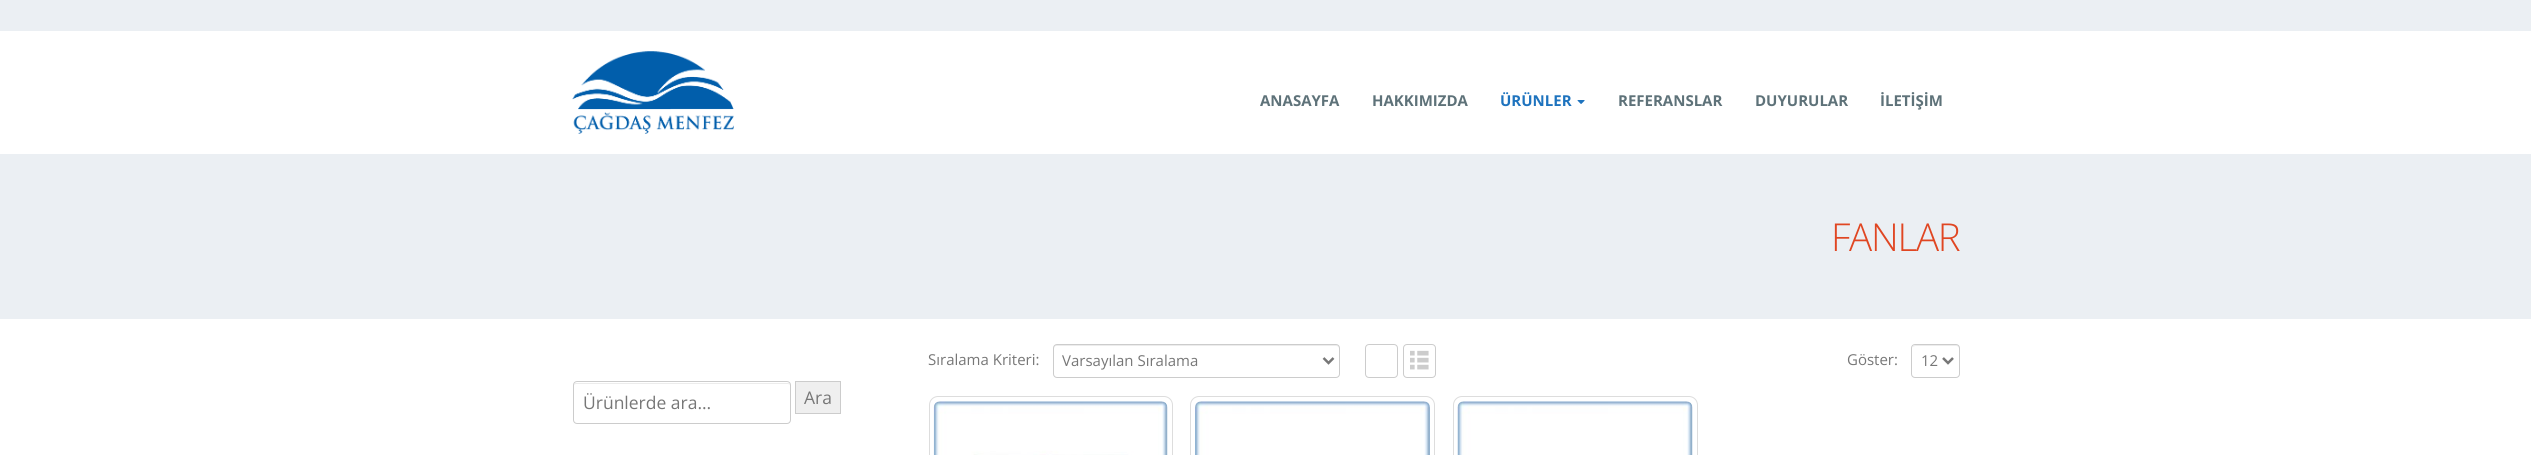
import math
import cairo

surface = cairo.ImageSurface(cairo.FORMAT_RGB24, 2531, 455)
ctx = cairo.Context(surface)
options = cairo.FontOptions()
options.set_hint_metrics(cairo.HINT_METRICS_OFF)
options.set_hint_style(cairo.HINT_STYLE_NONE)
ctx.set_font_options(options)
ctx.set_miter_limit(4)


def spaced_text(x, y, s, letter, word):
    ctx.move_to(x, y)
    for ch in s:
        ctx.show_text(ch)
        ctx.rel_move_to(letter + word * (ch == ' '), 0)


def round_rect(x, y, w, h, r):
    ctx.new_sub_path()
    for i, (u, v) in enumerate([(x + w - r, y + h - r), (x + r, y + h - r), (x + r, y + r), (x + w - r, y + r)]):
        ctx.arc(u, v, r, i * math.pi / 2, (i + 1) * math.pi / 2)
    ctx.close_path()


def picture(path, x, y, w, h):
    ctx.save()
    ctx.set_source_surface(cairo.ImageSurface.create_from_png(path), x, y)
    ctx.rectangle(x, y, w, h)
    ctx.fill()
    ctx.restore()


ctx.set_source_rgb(1, 1, 1)
ctx.paint()
ctx.set_source_rgb(0.918, 0.937, 0.953)
ctx.rectangle(0, 0, 2531, 31)
ctx.fill()
picture("img1.png", 572, 51, 162, 83)
ctx.select_font_face("Open Sans", cairo.FONT_SLANT_NORMAL, cairo.FONT_WEIGHT_BOLD)
ctx.set_font_size(15)
ctx.set_source_rgb(0.369, 0.447, 0.475)
ctx.move_to(1260, 106)
ctx.show_text("ANASAYFA")
ctx.move_to(1372, 106)
ctx.show_text("HAKKIMIZDA")
ctx.set_source_rgb(0.118, 0.451, 0.745)
ctx.move_to(1500, 106)
ctx.show_text("ÜRÜNLER")
picture("img2.png", 1577, 100, 8, 4)
ctx.set_source_rgb(0.369, 0.447, 0.475)
ctx.move_to(1618, 106)
ctx.show_text("REFERANSLAR")
ctx.move_to(1755, 106)
ctx.show_text("DUYURULAR")
ctx.move_to(1880, 106)
ctx.show_text("İLETİŞİM")
ctx.set_source_rgb(0.918, 0.937, 0.953)
ctx.rectangle(0, 154, 2531, 165)
ctx.fill()
ctx.select_font_face("Open Sans Light")
ctx.set_font_size(38.5)
ctx.set_source_rgb(0.878, 0.275, 0.133)
spaced_text(1831, 251, "FANLAR", -1.25, 0)
ctx.select_font_face("Open Sans")
ctx.set_font_size(15)
ctx.set_source_rgb(0.467, 0.467, 0.467)
ctx.move_to(928, 365)
ctx.show_text("Sıralama Kriteri:")
ctx.set_source_rgb(0.925, 0.925, 0.925)
ctx.new_path()
ctx.move_to(1056, 346)
ctx.line_to(1336, 346)
ctx.curve_to(1338, 346, 1339, 347, 1339, 349)
ctx.curve_to(1339, 347, 1339, 345, 1336, 345)
ctx.line_to(1056, 345)
ctx.curve_to(1054, 345, 1054, 347, 1054, 349)
ctx.curve_to(1054, 347, 1055, 346, 1056, 346)
ctx.close_path()
ctx.fill()
round_rect(1053.5, 344.5, 286, 33, 3.5)
ctx.set_source_rgb(0.8, 0.8, 0.8)
ctx.set_line_width(1)
ctx.stroke()
ctx.new_path()
ctx.move_to(1323.5, 358)
ctx.line_to(1328.5, 363)
ctx.line_to(1333.5, 358)
ctx.set_source_rgb(0.467, 0.467, 0.467)
ctx.set_line_width(2.5)
ctx.stroke()
ctx.move_to(1062, 366)
ctx.show_text("Varsayılan Sıralama")
round_rect(1365.5, 344.5, 32, 33, 3.5)
ctx.set_source_rgb(0.8, 0.8, 0.8)
ctx.set_line_width(1)
ctx.stroke()
round_rect(1403.5, 344.5, 32, 33, 3.5)
ctx.stroke()
picture("img3.png", 1410, 350, 19, 20)
ctx.set_source_rgb(0.467, 0.467, 0.467)
ctx.move_to(1847, 365)
ctx.show_text("Göster:")
ctx.set_source_rgb(0.925, 0.925, 0.925)
ctx.new_path()
ctx.move_to(1915, 346)
ctx.line_to(1956, 346)
ctx.curve_to(1958, 346, 1959, 347, 1959, 349)
ctx.line_to(1959, 348)
ctx.curve_to(1959, 346, 1958, 345, 1956, 345)
ctx.line_to(1916, 345)
ctx.curve_to(1914, 345, 1913, 346, 1913, 347)
ctx.close_path()
ctx.fill()
round_rect(1911.5, 344.5, 48, 33, 3.5)
ctx.set_source_rgb(0.8, 0.8, 0.8)
ctx.stroke()
ctx.new_path()
ctx.move_to(1943, 358)
ctx.line_to(1948, 363)
ctx.line_to(1953, 358)
ctx.set_source_rgb(0.467, 0.467, 0.467)
ctx.set_line_width(2.5)
ctx.stroke()
ctx.move_to(1921, 366)
ctx.show_text("12")
round_rect(929.5, 396.5, 243, 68, 8.5)
ctx.set_source_rgb(0.867, 0.867, 0.867)
ctx.set_line_width(1)
ctx.stroke()
picture("img4.png", 933, 401, 235, 54)
round_rect(1190.5, 396.5, 244, 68, 8.5)
ctx.stroke()
picture("img5.png", 1195, 401, 235, 54)
round_rect(1453.5, 396.5, 244, 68, 8.5)
ctx.stroke()
picture("img6.png", 1457, 401, 236, 54)
ctx.set_source_rgb(0.925, 0.925, 0.925)
ctx.new_path()
ctx.move_to(576, 384)
ctx.line_to(788, 384)
ctx.curve_to(789, 384, 790, 385, 790, 386)
ctx.curve_to(790, 384, 789, 383, 788, 383)
ctx.line_to(576, 383)
ctx.curve_to(575, 383, 574, 384, 574, 386)
ctx.curve_to(574, 385, 575, 384, 576, 384)
ctx.close_path()
ctx.fill()
round_rect(573.5, 381.5, 217, 42, 3.5)
ctx.set_source_rgb(0.8, 0.8, 0.8)
ctx.stroke()
ctx.set_font_size(17.5)
ctx.set_source_rgb(0.467, 0.467, 0.467)
ctx.move_to(583, 409)
ctx.show_text("Ürünlerde ara…")
ctx.set_source_rgb(0.937, 0.937, 0.937)
ctx.rectangle(795.5, 381.5, 45, 32)
ctx.fill_preserve()
ctx.set_source_rgb(0.8, 0.8, 0.8)
ctx.stroke()
ctx.set_source_rgb(0.467, 0.467, 0.467)
ctx.move_to(804, 404)
ctx.show_text("Ara")
surface.write_to_png("page.png")
